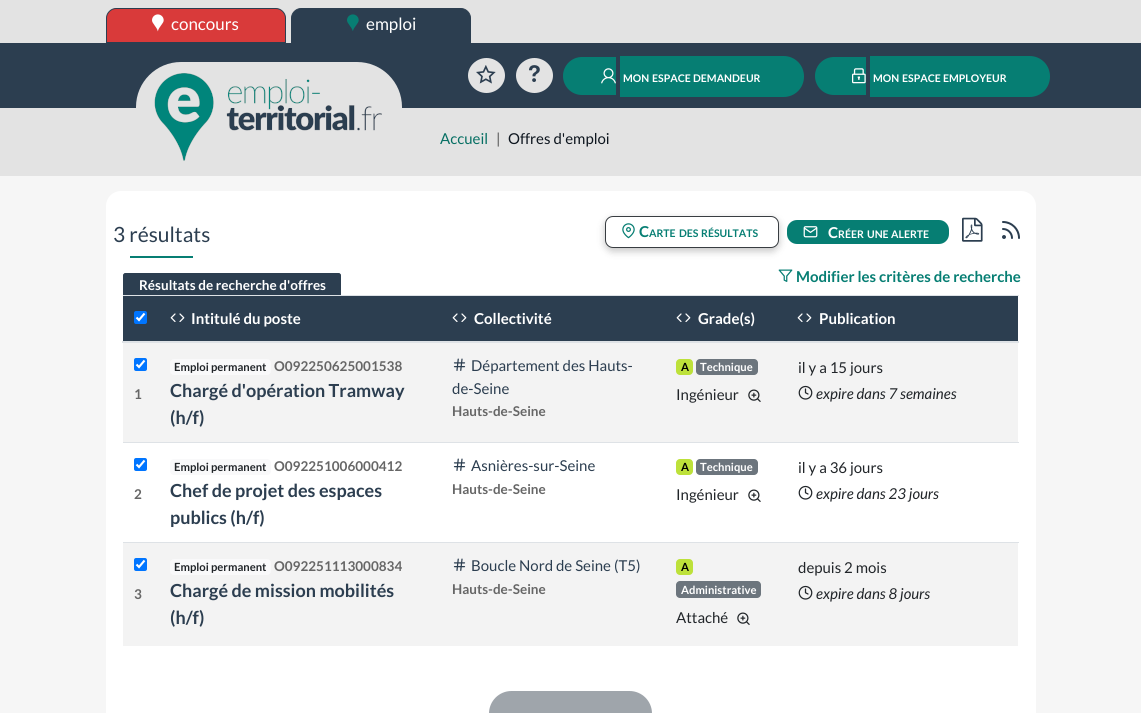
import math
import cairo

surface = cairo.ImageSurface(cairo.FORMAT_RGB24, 1141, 713)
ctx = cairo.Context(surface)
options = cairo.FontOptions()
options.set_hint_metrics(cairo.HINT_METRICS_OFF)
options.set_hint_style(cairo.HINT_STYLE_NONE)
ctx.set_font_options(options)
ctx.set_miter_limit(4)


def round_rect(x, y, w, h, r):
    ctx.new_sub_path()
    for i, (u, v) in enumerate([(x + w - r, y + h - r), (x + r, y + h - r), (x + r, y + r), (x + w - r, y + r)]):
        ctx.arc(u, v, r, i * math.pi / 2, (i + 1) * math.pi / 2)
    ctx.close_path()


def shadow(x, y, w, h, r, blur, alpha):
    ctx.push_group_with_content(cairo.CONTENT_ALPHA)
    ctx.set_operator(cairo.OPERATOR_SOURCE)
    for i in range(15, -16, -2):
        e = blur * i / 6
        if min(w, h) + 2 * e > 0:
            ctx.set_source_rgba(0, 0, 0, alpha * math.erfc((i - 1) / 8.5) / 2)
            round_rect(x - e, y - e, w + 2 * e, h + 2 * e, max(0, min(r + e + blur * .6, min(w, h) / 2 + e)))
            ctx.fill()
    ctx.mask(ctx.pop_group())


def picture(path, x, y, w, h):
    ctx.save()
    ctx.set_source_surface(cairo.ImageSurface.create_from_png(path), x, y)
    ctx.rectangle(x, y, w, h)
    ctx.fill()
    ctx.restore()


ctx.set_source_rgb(0.961, 0.961, 0.961)
ctx.paint()
ctx.set_source_rgb(0.89, 0.89, 0.89)
ctx.rectangle(0, 0, 1141, 43)
ctx.fill()
ctx.set_source_rgb(0.851, 0.227, 0.227)
ctx.new_path()
ctx.move_to(116, 8.5)
ctx.line_to(276, 8.5)
ctx.curve_to(281, 8.5, 285.5, 13, 285.5, 18)
ctx.line_to(285.5, 42.5)
ctx.line_to(106.5, 42.5)
ctx.line_to(106.5, 18)
ctx.curve_to(106.5, 13, 111, 8.5, 116, 8.5)
ctx.close_path()
ctx.fill_preserve()
ctx.set_source_rgb(0.173, 0.243, 0.314)
ctx.set_line_width(1)
ctx.stroke()
picture("img1.png", 152, 14, 12, 18)
ctx.select_font_face("Lato")
ctx.set_font_size(17)
ctx.set_source_rgb(1, 1, 1)
ctx.move_to(171, 30)
ctx.show_text("concours")
ctx.set_source_rgb(0.173, 0.243, 0.314)
ctx.new_path()
ctx.move_to(301, 8.5)
ctx.line_to(461, 8.5)
ctx.curve_to(466, 8.5, 470.5, 13, 470.5, 18)
ctx.line_to(470.5, 42.5)
ctx.line_to(291.5, 42.5)
ctx.line_to(291.5, 18)
ctx.curve_to(291.5, 13, 296, 8.5, 301, 8.5)
ctx.close_path()
ctx.fill_preserve()
ctx.stroke()
picture("img2.png", 347, 14, 12, 17)
ctx.set_source_rgb(1, 1, 1)
ctx.move_to(366, 30)
ctx.show_text("emploi")
ctx.set_source_rgb(0.173, 0.243, 0.314)
ctx.rectangle(0, 43, 1141, 65)
ctx.fill()
ctx.set_source_rgb(0.89, 0.89, 0.89)
ctx.rectangle(0, 108, 1141, 68)
ctx.fill()
round_rect(136, 62, 266, 100, 45)
ctx.fill()
picture("img3.png", 154, 73, 228, 88)
ctx.new_path()
ctx.move_to(486.5, 58)
ctx.curve_to(496.5, 58, 505, 66, 505, 75.5)
ctx.curve_to(505, 85, 496.5, 93, 486.5, 93)
ctx.curve_to(476.5, 93, 468, 85, 468, 75.5)
ctx.curve_to(468, 66, 476.5, 58, 486.5, 58)
ctx.close_path()
ctx.fill()
picture("img4.png", 476, 65, 20, 19)
ctx.new_path()
ctx.move_to(534.5, 58)
ctx.curve_to(544.5, 58, 553, 66, 553, 75.5)
ctx.curve_to(553, 85, 544.5, 93, 534.5, 93)
ctx.curve_to(524.5, 93, 516, 85, 516, 75.5)
ctx.curve_to(516, 66, 524.5, 58, 534.5, 58)
ctx.close_path()
ctx.fill()
picture("img5.png", 529, 65, 11, 17)
ctx.set_source_rgb(0.027, 0.494, 0.451)
ctx.new_path()
ctx.move_to(582, 57)
ctx.line_to(616, 57)
ctx.line_to(616, 95)
ctx.line_to(582, 95)
ctx.curve_to(571.5, 95, 563, 86.5, 563, 76)
ctx.curve_to(563, 65.5, 571.5, 57, 582, 57)
ctx.close_path()
ctx.fill()
picture("img6.png", 601, 68, 15, 16)
ctx.new_path()
ctx.move_to(620, 56)
ctx.line_to(783.5, 56)
ctx.curve_to(795, 56, 804, 65, 804, 76.5)
ctx.curve_to(804, 88, 795, 97, 783.5, 97)
ctx.line_to(620, 97)
ctx.close_path()
ctx.fill()
ctx.select_font_face("Lato", cairo.FONT_SLANT_NORMAL, cairo.FONT_WEIGHT_BOLD)
ctx.set_font_size(10.5)
ctx.set_source_rgb(1, 1, 1)
ctx.move_to(623, 82)
ctx.show_text("MON")
ctx.move_to(652, 82)
ctx.show_text("ESPACE")
ctx.move_to(693, 82)
ctx.show_text("DEMANDEUR")
ctx.set_source_rgb(0.027, 0.494, 0.451)
ctx.new_path()
ctx.move_to(834, 57)
ctx.line_to(866, 57)
ctx.line_to(866, 95)
ctx.line_to(834, 95)
ctx.curve_to(823.5, 95, 815, 86.5, 815, 76)
ctx.curve_to(815, 65.5, 823.5, 57, 834, 57)
ctx.close_path()
ctx.fill()
picture("img7.png", 852, 68, 14, 16)
ctx.new_path()
ctx.move_to(870, 56)
ctx.line_to(1029.5, 56)
ctx.curve_to(1041, 56, 1050, 65, 1050, 76.5)
ctx.curve_to(1050, 88, 1041, 97, 1029.5, 97)
ctx.line_to(870, 97)
ctx.close_path()
ctx.fill()
ctx.set_source_rgb(1, 1, 1)
ctx.move_to(873, 82)
ctx.show_text("MON")
ctx.move_to(902, 82)
ctx.show_text("ESPACE")
ctx.move_to(943, 82)
ctx.show_text("EMPLOYEUR")
ctx.select_font_face("Lato")
ctx.set_font_size(15)
ctx.set_source_rgb(0.024, 0.435, 0.388)
ctx.move_to(440, 144)
ctx.show_text("Accueil")
ctx.set_source_rgb(0.333, 0.333, 0.333)
ctx.move_to(496, 144)
ctx.show_text("|")
ctx.set_source_rgb(0.055, 0.086, 0.122)
ctx.move_to(508, 144)
ctx.show_text("Offres d'emploi")
ctx.set_source_rgb(1, 1, 1)
round_rect(106, 191, 930, 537, 15)
ctx.fill()
ctx.set_font_size(21)
ctx.set_source_rgb(0.173, 0.243, 0.314)
ctx.move_to(113, 242)
ctx.show_text("3 résultats")
ctx.set_source_rgb(0.027, 0.494, 0.451)
ctx.rectangle(130, 256, 63, 2)
ctx.fill()
ctx.set_source_rgb(0, 0, 0)
shadow(605, 219, 174, 32, 8, 4, 0.24)
ctx.set_source_rgb(1, 1, 1)
round_rect(605.5, 216.5, 173, 31, 7.5)
ctx.fill_preserve()
ctx.set_source_rgb(0.22, 0.239, 0.255)
ctx.stroke()
picture("img8.png", 622, 223, 13, 16)
ctx.select_font_face("Lato", cairo.FONT_SLANT_NORMAL, cairo.FONT_WEIGHT_BOLD)
ctx.set_font_size(15)
ctx.set_source_rgb(0.027, 0.494, 0.451)
ctx.move_to(639, 237)
ctx.show_text("C")
ctx.set_font_size(10.5)
ctx.move_to(649, 237)
ctx.show_text("ARTE")
ctx.move_to(679, 237)
ctx.show_text("DES")
ctx.move_to(701, 237)
ctx.show_text("RÉSULTATS")
round_rect(787, 220, 162, 24, 10)
ctx.fill()
picture("img9.png", 803, 226, 15, 12)
ctx.set_font_size(15)
ctx.set_source_rgb(1, 1, 1)
ctx.move_to(828, 238)
ctx.show_text("C")
ctx.set_font_size(10.5)
ctx.move_to(838, 238)
ctx.show_text("RÉER")
ctx.move_to(867, 238)
ctx.show_text("UNE")
ctx.move_to(891, 238)
ctx.show_text("ALERTE")
picture("img10.png", 962, 217, 21, 25)
picture("img11.png", 1002, 221, 18, 18)
picture("img12.png", 778, 269, 15, 13)
ctx.set_font_size(15)
ctx.set_source_rgb(0.027, 0.494, 0.451)
ctx.move_to(796, 282)
ctx.show_text("Modifier les critères de recherche")
ctx.set_source_rgb(0.173, 0.243, 0.314)
ctx.new_path()
ctx.move_to(126, 273)
ctx.line_to(338, 273)
ctx.curve_to(339.5, 273, 341, 274.5, 341, 276)
ctx.line_to(341, 295)
ctx.line_to(123, 295)
ctx.line_to(123, 276)
ctx.curve_to(123, 274.5, 124.5, 273, 126, 273)
ctx.close_path()
ctx.fill()
ctx.set_fill_rule(cairo.FILL_RULE_EVEN_ODD)
ctx.new_path()
ctx.move_to(126, 273)
ctx.line_to(338, 273)
ctx.curve_to(340, 273, 341, 274, 341, 276)
ctx.line_to(341, 295)
ctx.line_to(123, 295)
ctx.line_to(123, 276)
ctx.curve_to(123, 274, 124, 273, 126, 273)
ctx.close_path()
ctx.move_to(126, 275)
ctx.line_to(338, 275)
ctx.curve_to(339, 275, 339, 275, 339, 276)
ctx.line_to(339, 295)
ctx.line_to(125, 295)
ctx.curve_to(125, 291, 124, 275, 126, 275)
ctx.close_path()
ctx.fill()
ctx.set_font_size(13.5)
ctx.set_source_rgb(1, 1, 1)
ctx.move_to(139, 290)
ctx.show_text("Résultats de recherche d'offres")
ctx.set_source_rgb(0.173, 0.243, 0.314)
ctx.rectangle(123, 296, 895, 45)
ctx.fill()
ctx.set_source_rgb(0, 0.459, 1)
round_rect(134, 311, 13, 13, 2)
ctx.fill()
ctx.new_path()
ctx.move_to(136.5, 317.5)
ctx.line_to(139, 320)
ctx.line_to(144.5, 313.5)
ctx.set_source_rgb(1, 1, 1)
ctx.set_line_width(2.1)
ctx.stroke()
picture("img13.png", 170, 313, 15, 9)
ctx.set_font_size(15)
ctx.move_to(191, 324)
ctx.show_text("Intitulé du poste")
picture("img13.png", 452, 313, 15, 9)
ctx.move_to(474, 324)
ctx.show_text("Collectivité")
picture("img13.png", 676, 313, 15, 9)
ctx.move_to(698, 324)
ctx.show_text("Grade(s)")
ctx.set_source_rgb(0.871, 0.886, 0.902)
ctx.rectangle(123, 295, 896, 1)
ctx.fill()
ctx.rectangle(122, 341, 897, 2)
ctx.fill()
picture("img13.png", 797, 313, 15, 9)
ctx.set_source_rgb(1, 1, 1)
ctx.move_to(819, 324)
ctx.show_text("Publication")
ctx.set_source_rgb(0.953, 0.953, 0.953)
ctx.rectangle(123, 343, 895, 99)
ctx.fill()
ctx.set_source_rgb(0, 0.459, 1)
round_rect(134, 358, 13, 13, 2)
ctx.fill()
ctx.new_path()
ctx.move_to(136.5, 364.5)
ctx.line_to(139, 367)
ctx.line_to(144.5, 360.5)
ctx.set_source_rgb(1, 1, 1)
ctx.stroke()
ctx.set_font_size(13.5)
ctx.set_source_rgb(0.4, 0.4, 0.4)
ctx.move_to(134, 399)
ctx.show_text("1")
ctx.set_source_rgb(0.973, 0.976, 0.98)
round_rect(170, 359, 101, 16, 4)
ctx.fill()
ctx.set_font_size(11.25)
ctx.set_source_rgb(0.129, 0.145, 0.161)
ctx.move_to(174, 371)
ctx.show_text("Emploi permanent")
ctx.set_font_size(13.5)
ctx.set_source_rgb(0.4, 0.4, 0.4)
ctx.move_to(274, 371)
ctx.show_text("O092250625001538")
ctx.set_font_size(18)
ctx.set_source_rgb(0.173, 0.243, 0.314)
ctx.move_to(170, 397)
ctx.show_text("Chargé d'opération Tramway")
ctx.move_to(170, 424)
ctx.show_text("(h/f)")
picture("img14.png", 453, 358, 13, 13)
ctx.select_font_face("Lato")
ctx.set_font_size(15)
ctx.move_to(471, 371)
ctx.show_text("Département des Hauts-")
ctx.move_to(452, 394)
ctx.show_text("de-Seine")
ctx.select_font_face("Lato", cairo.FONT_SLANT_NORMAL, cairo.FONT_WEIGHT_BOLD)
ctx.set_font_size(13.5)
ctx.set_source_rgb(0.4, 0.4, 0.4)
ctx.move_to(452, 416)
ctx.show_text("Hauts-de-Seine")
ctx.set_source_rgb(0.741, 0.882, 0.227)
round_rect(676, 359, 17, 16, 4)
ctx.fill()
ctx.set_font_size(11.25)
ctx.set_source_rgb(0, 0, 0)
ctx.move_to(681, 371)
ctx.show_text("A")
ctx.set_source_rgb(0.424, 0.459, 0.49)
round_rect(696, 359, 62, 16, 4)
ctx.fill()
ctx.set_source_rgb(1, 1, 1)
ctx.move_to(700, 371)
ctx.show_text("Technique")
ctx.select_font_face("Lato")
ctx.set_font_size(15)
ctx.set_source_rgb(0.129, 0.145, 0.161)
ctx.move_to(676, 400)
ctx.show_text("Ingénieur")
picture("img15.png", 748, 389, 13, 13)
ctx.move_to(798, 373)
ctx.show_text("il y a 15 jours")
picture("img16.png", 798, 385, 15, 15)
ctx.select_font_face("Lato", cairo.FONT_SLANT_ITALIC)
ctx.move_to(816, 399)
ctx.show_text("expire dans 7 semaines")
ctx.set_source_rgb(0, 0.459, 1)
round_rect(134, 458, 13, 13, 2)
ctx.fill()
ctx.new_path()
ctx.move_to(136.5, 464.5)
ctx.line_to(139, 467)
ctx.line_to(144.5, 460.5)
ctx.set_source_rgb(1, 1, 1)
ctx.stroke()
ctx.select_font_face("Lato", cairo.FONT_SLANT_NORMAL, cairo.FONT_WEIGHT_BOLD)
ctx.set_font_size(13.5)
ctx.set_source_rgb(0.4, 0.4, 0.4)
ctx.move_to(134, 499)
ctx.show_text("2")
ctx.set_source_rgb(0.973, 0.976, 0.98)
round_rect(170, 459, 101, 16, 4)
ctx.fill()
ctx.set_font_size(11.25)
ctx.set_source_rgb(0.129, 0.145, 0.161)
ctx.move_to(174, 471)
ctx.show_text("Emploi permanent")
ctx.set_font_size(13.5)
ctx.set_source_rgb(0.4, 0.4, 0.4)
ctx.move_to(274, 471)
ctx.show_text("O092251006000412")
ctx.set_font_size(18)
ctx.set_source_rgb(0.173, 0.243, 0.314)
ctx.move_to(170, 497)
ctx.show_text("Chef de projet des espaces")
ctx.move_to(170, 524)
ctx.show_text("publics (h/f)")
picture("img17.png", 453, 458, 13, 13)
ctx.select_font_face("Lato")
ctx.set_font_size(15)
ctx.move_to(471, 471)
ctx.show_text("Asnières-sur-Seine")
ctx.select_font_face("Lato", cairo.FONT_SLANT_NORMAL, cairo.FONT_WEIGHT_BOLD)
ctx.set_font_size(13.5)
ctx.set_source_rgb(0.4, 0.4, 0.4)
ctx.move_to(452, 494)
ctx.show_text("Hauts-de-Seine")
ctx.set_source_rgb(0.741, 0.882, 0.227)
round_rect(676, 459, 17, 16, 4)
ctx.fill()
ctx.set_font_size(11.25)
ctx.set_source_rgb(0, 0, 0)
ctx.move_to(681, 471)
ctx.show_text("A")
ctx.set_source_rgb(0.424, 0.459, 0.49)
round_rect(696, 459, 62, 16, 4)
ctx.fill()
ctx.set_source_rgb(1, 1, 1)
ctx.move_to(700, 471)
ctx.show_text("Technique")
ctx.select_font_face("Lato")
ctx.set_font_size(15)
ctx.set_source_rgb(0.129, 0.145, 0.161)
ctx.move_to(676, 500)
ctx.show_text("Ingénieur")
picture("img18.png", 748, 489, 13, 13)
ctx.set_source_rgb(0.871, 0.886, 0.902)
ctx.rectangle(123, 442, 896, 1)
ctx.fill()
ctx.set_source_rgb(0.129, 0.145, 0.161)
ctx.move_to(798, 473)
ctx.show_text("il y a 36 jours")
picture("img19.png", 798, 485, 15, 15)
ctx.select_font_face("Lato", cairo.FONT_SLANT_ITALIC)
ctx.move_to(816, 499)
ctx.show_text("expire dans 23 jours")
ctx.set_source_rgb(0.953, 0.953, 0.953)
ctx.rectangle(123, 543, 895, 103)
ctx.fill()
ctx.set_source_rgb(0, 0.459, 1)
round_rect(134, 558, 13, 13, 2)
ctx.fill()
ctx.new_path()
ctx.move_to(136.5, 564.5)
ctx.line_to(139, 567)
ctx.line_to(144.5, 560.5)
ctx.set_source_rgb(1, 1, 1)
ctx.stroke()
ctx.select_font_face("Lato", cairo.FONT_SLANT_NORMAL, cairo.FONT_WEIGHT_BOLD)
ctx.set_font_size(13.5)
ctx.set_source_rgb(0.4, 0.4, 0.4)
ctx.move_to(134, 599)
ctx.show_text("3")
ctx.set_source_rgb(0.973, 0.976, 0.98)
round_rect(170, 559, 101, 16, 4)
ctx.fill()
ctx.set_font_size(11.25)
ctx.set_source_rgb(0.129, 0.145, 0.161)
ctx.move_to(174, 571)
ctx.show_text("Emploi permanent")
ctx.set_font_size(13.5)
ctx.set_source_rgb(0.4, 0.4, 0.4)
ctx.move_to(274, 571)
ctx.show_text("O092251113000834")
ctx.set_font_size(18)
ctx.set_source_rgb(0.173, 0.243, 0.314)
ctx.move_to(170, 597)
ctx.show_text("Chargé de mission mobilités")
ctx.move_to(170, 624)
ctx.show_text("(h/f)")
picture("img14.png", 453, 558, 13, 13)
ctx.select_font_face("Lato")
ctx.set_font_size(15)
ctx.move_to(471, 571)
ctx.show_text("Boucle Nord de Seine (T5)")
ctx.select_font_face("Lato", cairo.FONT_SLANT_NORMAL, cairo.FONT_WEIGHT_BOLD)
ctx.set_font_size(13.5)
ctx.set_source_rgb(0.4, 0.4, 0.4)
ctx.move_to(452, 594)
ctx.show_text("Hauts-de-Seine")
ctx.set_source_rgb(0.741, 0.882, 0.227)
round_rect(676, 559, 17, 16, 4)
ctx.fill()
ctx.set_font_size(11.25)
ctx.set_source_rgb(0, 0, 0)
ctx.move_to(681, 571)
ctx.show_text("A")
ctx.set_source_rgb(0.424, 0.459, 0.49)
round_rect(676, 581, 85, 17, 4)
ctx.fill()
ctx.set_source_rgb(1, 1, 1)
ctx.move_to(681, 594)
ctx.show_text("Administrative")
ctx.select_font_face("Lato")
ctx.set_font_size(15)
ctx.set_source_rgb(0.129, 0.145, 0.161)
ctx.move_to(676, 623)
ctx.show_text("Attaché")
picture("img15.png", 737, 612, 13, 13)
ctx.set_source_rgb(0.871, 0.886, 0.902)
ctx.rectangle(123, 542, 896, 1)
ctx.fill()
ctx.set_source_rgb(0.129, 0.145, 0.161)
ctx.move_to(798, 573)
ctx.show_text("depuis 2 mois")
picture("img16.png", 798, 585, 15, 15)
ctx.select_font_face("Lato", cairo.FONT_SLANT_ITALIC)
ctx.move_to(816, 599)
ctx.show_text("expire dans 8 jours")
ctx.set_source_rgb(0.624, 0.647, 0.671)
round_rect(489, 691, 163, 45, 22.5)
ctx.fill()
surface.write_to_png("page.png")
